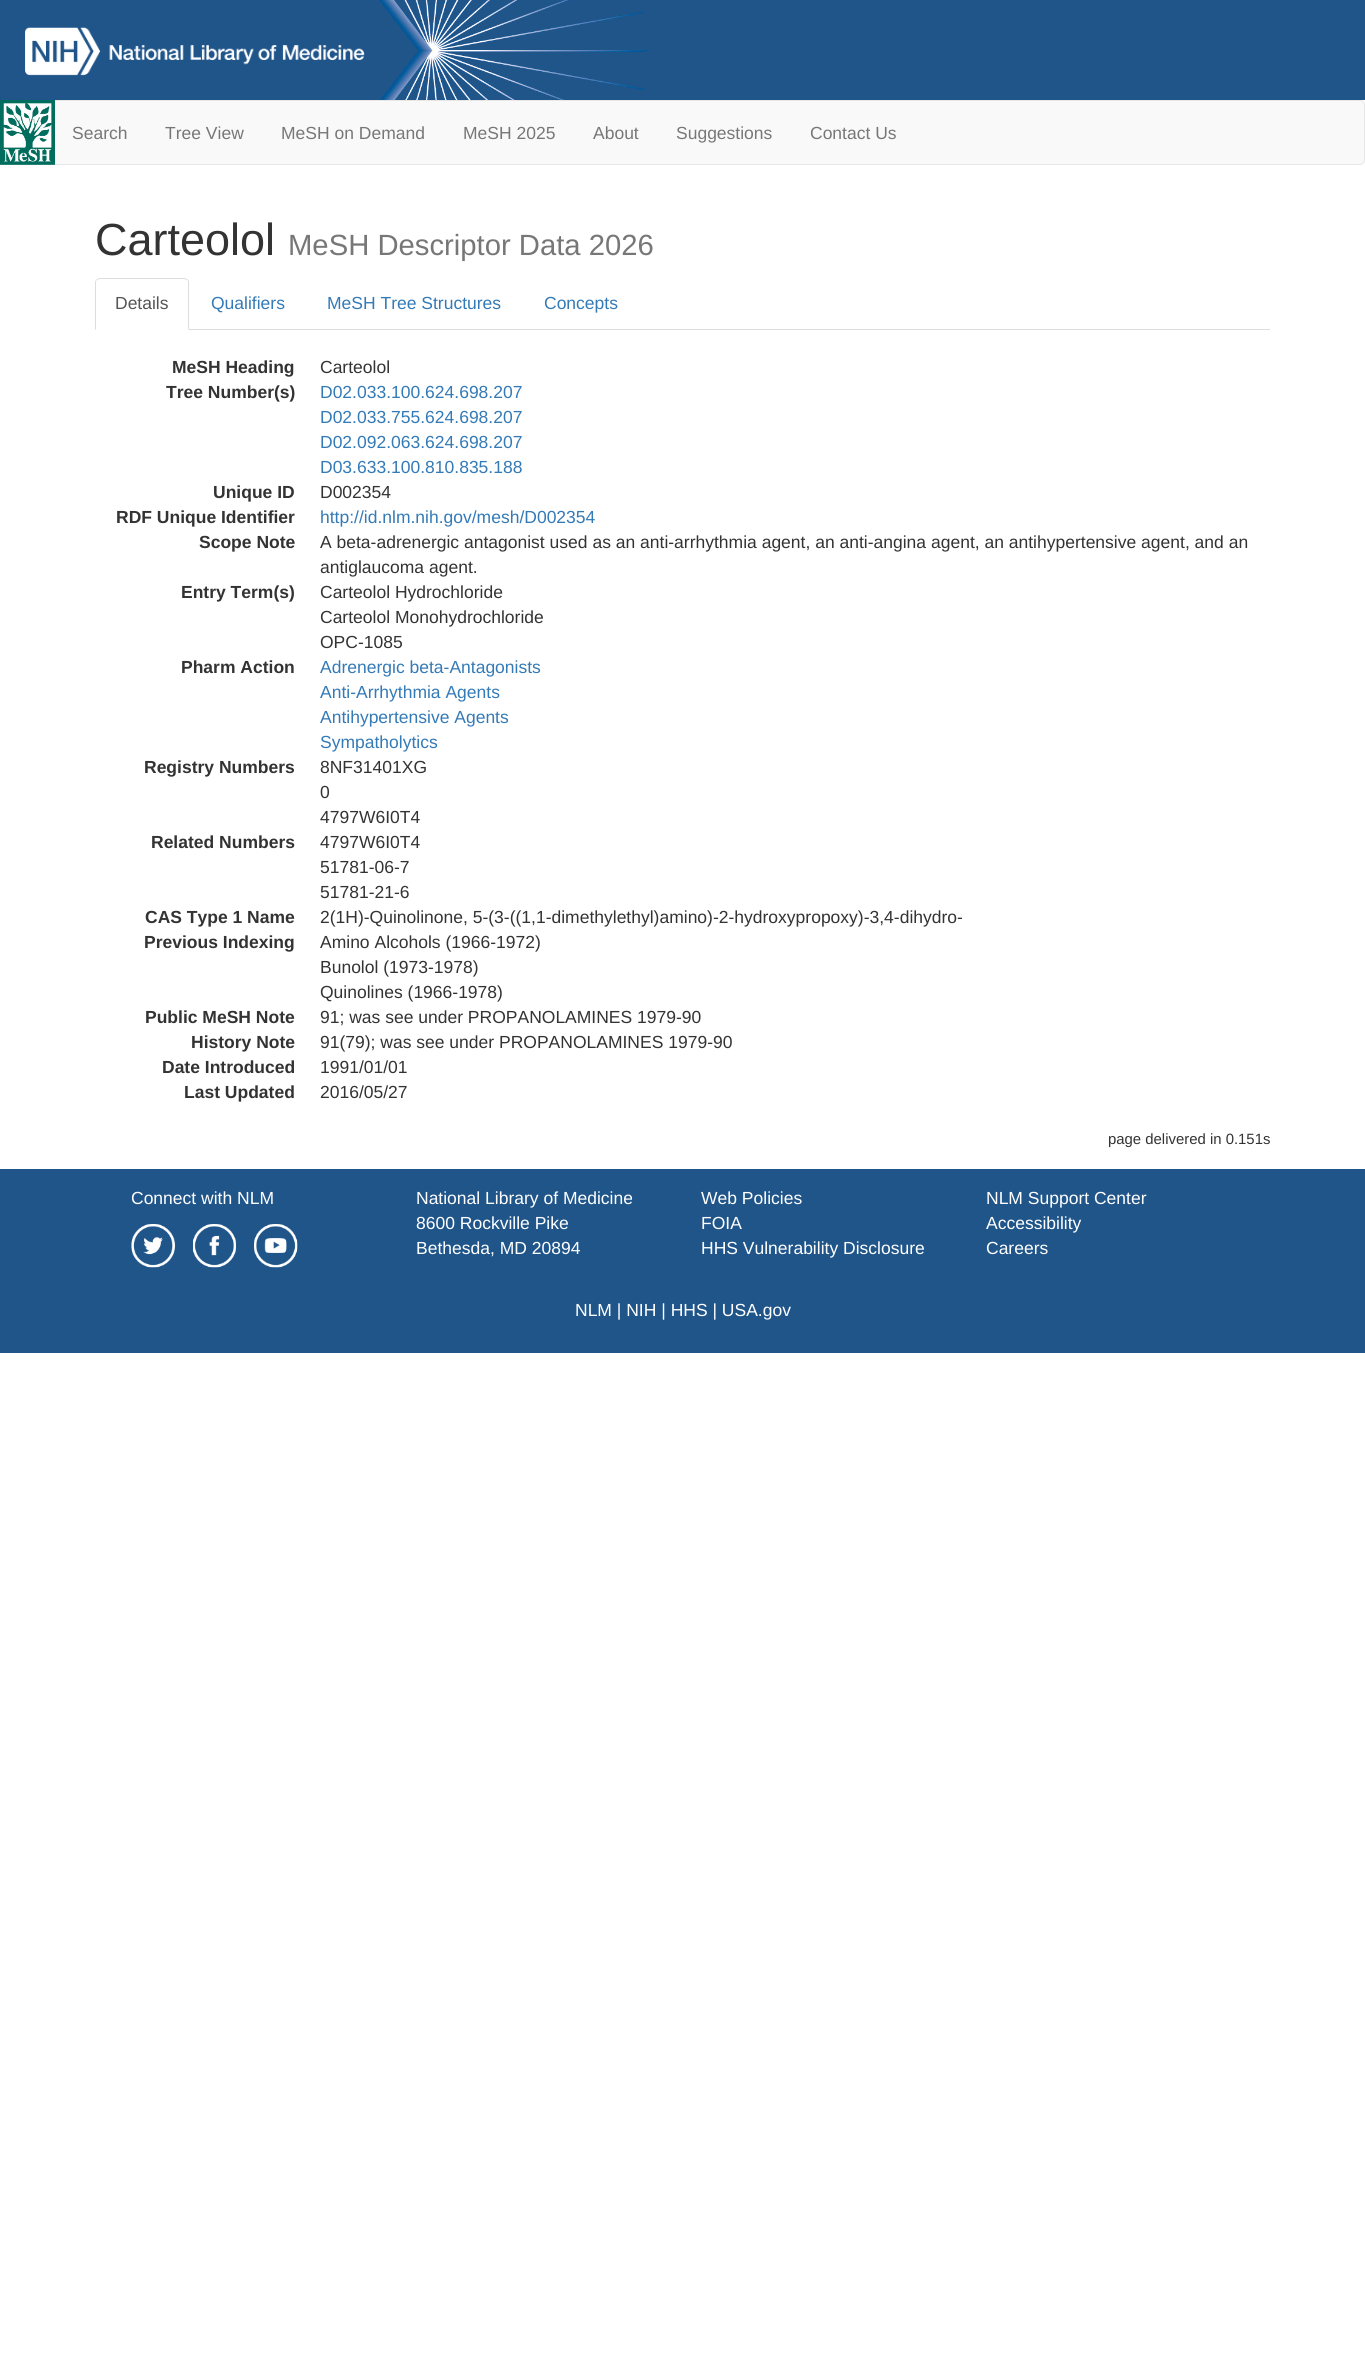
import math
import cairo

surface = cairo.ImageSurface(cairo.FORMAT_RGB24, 1365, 2363)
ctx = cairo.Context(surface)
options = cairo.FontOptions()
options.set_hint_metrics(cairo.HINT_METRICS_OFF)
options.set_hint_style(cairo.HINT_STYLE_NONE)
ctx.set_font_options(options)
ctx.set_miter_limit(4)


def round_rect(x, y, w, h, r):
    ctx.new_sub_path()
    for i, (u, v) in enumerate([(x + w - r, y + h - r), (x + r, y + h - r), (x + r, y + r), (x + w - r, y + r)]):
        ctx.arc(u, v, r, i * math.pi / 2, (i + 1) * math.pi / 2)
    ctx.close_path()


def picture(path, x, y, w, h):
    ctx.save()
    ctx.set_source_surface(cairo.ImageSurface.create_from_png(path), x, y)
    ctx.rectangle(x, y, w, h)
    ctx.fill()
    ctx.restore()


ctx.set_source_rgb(1, 1, 1)
ctx.paint()
ctx.set_source_rgb(0.125, 0.333, 0.541)
ctx.rectangle(0, 0, 1365, 100)
ctx.fill()
picture("img1.png", 379, 0, 270, 100)
picture("img2.png", 25, 27, 340, 49)
ctx.set_source_rgb(0.973, 0.973, 0.973)
round_rect(0.5, 100.5, 1364, 64, 4.5)
ctx.fill_preserve()
ctx.set_source_rgb(0.906, 0.906, 0.906)
ctx.set_line_width(1)
ctx.stroke()
picture("img3.png", 0, 100, 55, 65)
ctx.select_font_face("Liberation Sans")
ctx.set_font_size(17.5)
ctx.set_source_rgb(0.467, 0.467, 0.467)
ctx.move_to(72, 139)
ctx.show_text("Search")
ctx.move_to(165, 139)
ctx.show_text("Tree View")
ctx.move_to(281, 139)
ctx.show_text("MeSH on Demand")
ctx.move_to(463, 139)
ctx.show_text("MeSH 2025")
ctx.move_to(593, 139)
ctx.show_text("About")
ctx.move_to(676, 139)
ctx.show_text("Suggestions")
ctx.move_to(810, 139)
ctx.show_text("Contact Us")
ctx.set_font_size(45)
ctx.set_source_rgb(0.2, 0.2, 0.2)
ctx.move_to(95, 255)
ctx.show_text("Carteolol")
ctx.set_font_size(29.25)
ctx.set_source_rgb(0.467, 0.467, 0.467)
ctx.move_to(288, 255)
ctx.show_text("MeSH Descriptor Data 2026")
ctx.set_source_rgb(0.867, 0.867, 0.867)
ctx.rectangle(189, 329, 1081, 1)
ctx.fill()
ctx.new_path()
ctx.move_to(100, 278)
ctx.line_to(97, 279)
ctx.line_to(97, 280)
ctx.line_to(100, 279)
ctx.line_to(184, 279)
ctx.line_to(187, 280)
ctx.line_to(187, 279)
ctx.line_to(184, 278)
ctx.close_path()
ctx.fill()
ctx.new_path()
ctx.move_to(187, 279)
ctx.line_to(189, 281)
ctx.line_to(189, 330)
ctx.line_to(188, 329)
ctx.line_to(188, 281)
ctx.line_to(187, 280)
ctx.close_path()
ctx.fill()
ctx.new_path()
ctx.move_to(95, 330)
ctx.line_to(96, 329)
ctx.line_to(96, 281)
ctx.line_to(97, 280)
ctx.line_to(97, 279)
ctx.curve_to(96, 280, 95, 281, 95, 282)
ctx.close_path()
ctx.fill()
ctx.set_font_size(17.5)
ctx.set_source_rgb(0.333, 0.333, 0.333)
ctx.move_to(115, 309)
ctx.show_text("Details")
ctx.set_source_rgb(0.2, 0.478, 0.718)
ctx.move_to(211, 309)
ctx.show_text("Qualifiers")
ctx.move_to(327, 309)
ctx.show_text("MeSH Tree Structures")
ctx.move_to(544, 309)
ctx.show_text("Concepts")
ctx.select_font_face("Liberation Sans", cairo.FONT_SLANT_NORMAL, cairo.FONT_WEIGHT_BOLD)
ctx.set_source_rgb(0.2, 0.2, 0.2)
ctx.move_to(172, 373)
ctx.show_text("MeSH Heading")
ctx.select_font_face("Liberation Sans")
ctx.move_to(320, 373)
ctx.show_text("Carteolol")
ctx.select_font_face("Liberation Sans", cairo.FONT_SLANT_NORMAL, cairo.FONT_WEIGHT_BOLD)
ctx.move_to(166, 398)
ctx.show_text("Tree Number(s)")
ctx.select_font_face("Liberation Sans")
ctx.set_source_rgb(0.2, 0.478, 0.718)
ctx.move_to(320, 398)
ctx.show_text("D02.033.100.624.698.207")
ctx.move_to(320, 423)
ctx.show_text("D02.033.755.624.698.207")
ctx.move_to(320, 448)
ctx.show_text("D02.092.063.624.698.207")
ctx.move_to(320, 473)
ctx.show_text("D03.633.100.810.835.188")
ctx.select_font_face("Liberation Sans", cairo.FONT_SLANT_NORMAL, cairo.FONT_WEIGHT_BOLD)
ctx.set_source_rgb(0.2, 0.2, 0.2)
ctx.move_to(213, 498)
ctx.show_text("Unique ID")
ctx.select_font_face("Liberation Sans")
ctx.move_to(320, 498)
ctx.show_text("D002354")
ctx.select_font_face("Liberation Sans", cairo.FONT_SLANT_NORMAL, cairo.FONT_WEIGHT_BOLD)
ctx.move_to(116, 523)
ctx.show_text("RDF Unique Identifier")
ctx.select_font_face("Liberation Sans")
ctx.set_source_rgb(0.2, 0.478, 0.718)
ctx.move_to(320, 523)
ctx.show_text("http://id.nlm.nih.gov/mesh/D002354")
ctx.select_font_face("Liberation Sans", cairo.FONT_SLANT_NORMAL, cairo.FONT_WEIGHT_BOLD)
ctx.set_source_rgb(0.2, 0.2, 0.2)
ctx.move_to(199, 548)
ctx.show_text("Scope Note")
ctx.select_font_face("Liberation Sans")
ctx.move_to(320, 548)
ctx.show_text("A beta-adrenergic antagonist used as an anti-arrhythmia agent, an anti-angina agent, an antihypertensive agent, and an")
ctx.move_to(320, 573)
ctx.show_text("antiglaucoma agent.")
ctx.select_font_face("Liberation Sans", cairo.FONT_SLANT_NORMAL, cairo.FONT_WEIGHT_BOLD)
ctx.move_to(181, 598)
ctx.show_text("Entry Term(s)")
ctx.select_font_face("Liberation Sans")
ctx.move_to(320, 598)
ctx.show_text("Carteolol Hydrochloride")
ctx.move_to(320, 623)
ctx.show_text("Carteolol Monohydrochloride")
ctx.move_to(320, 648)
ctx.show_text("OPC-1085")
ctx.select_font_face("Liberation Sans", cairo.FONT_SLANT_NORMAL, cairo.FONT_WEIGHT_BOLD)
ctx.move_to(181, 673)
ctx.show_text("Pharm Action")
ctx.select_font_face("Liberation Sans")
ctx.set_source_rgb(0.2, 0.478, 0.718)
ctx.move_to(320, 673)
ctx.show_text("Adrenergic beta-Antagonists")
ctx.move_to(320, 698)
ctx.show_text("Anti-Arrhythmia Agents")
ctx.move_to(320, 723)
ctx.show_text("Antihypertensive Agents")
ctx.move_to(320, 748)
ctx.show_text("Sympatholytics")
ctx.select_font_face("Liberation Sans", cairo.FONT_SLANT_NORMAL, cairo.FONT_WEIGHT_BOLD)
ctx.set_source_rgb(0.2, 0.2, 0.2)
ctx.move_to(144, 773)
ctx.show_text("Registry Numbers")
ctx.select_font_face("Liberation Sans")
ctx.move_to(320, 773)
ctx.show_text("8NF31401XG")
ctx.move_to(320, 798)
ctx.show_text("0")
ctx.move_to(320, 823)
ctx.show_text("4797W6I0T4")
ctx.select_font_face("Liberation Sans", cairo.FONT_SLANT_NORMAL, cairo.FONT_WEIGHT_BOLD)
ctx.move_to(151, 848)
ctx.show_text("Related Numbers")
ctx.select_font_face("Liberation Sans")
ctx.move_to(320, 848)
ctx.show_text("4797W6I0T4")
ctx.move_to(320, 873)
ctx.show_text("51781-06-7")
ctx.move_to(320, 898)
ctx.show_text("51781-21-6")
ctx.select_font_face("Liberation Sans", cairo.FONT_SLANT_NORMAL, cairo.FONT_WEIGHT_BOLD)
ctx.move_to(145, 923)
ctx.show_text("CAS Type 1 Name")
ctx.select_font_face("Liberation Sans")
ctx.move_to(320, 923)
ctx.show_text("2(1H)-Quinolinone, 5-(3-((1,1-dimethylethyl)amino)-2-hydroxypropoxy)-3,4-dihydro-")
ctx.select_font_face("Liberation Sans", cairo.FONT_SLANT_NORMAL, cairo.FONT_WEIGHT_BOLD)
ctx.move_to(144, 948)
ctx.show_text("Previous Indexing")
ctx.select_font_face("Liberation Sans")
ctx.move_to(320, 948)
ctx.show_text("Amino Alcohols (1966-1972)")
ctx.move_to(320, 973)
ctx.show_text("Bunolol (1973-1978)")
ctx.move_to(320, 998)
ctx.show_text("Quinolines (1966-1978)")
ctx.select_font_face("Liberation Sans", cairo.FONT_SLANT_NORMAL, cairo.FONT_WEIGHT_BOLD)
ctx.move_to(145, 1023)
ctx.show_text("Public MeSH Note")
ctx.select_font_face("Liberation Sans")
ctx.move_to(320, 1023)
ctx.show_text("91; was see under PROPANOLAMINES 1979-90")
ctx.select_font_face("Liberation Sans", cairo.FONT_SLANT_NORMAL, cairo.FONT_WEIGHT_BOLD)
ctx.move_to(191, 1048)
ctx.show_text("History Note")
ctx.select_font_face("Liberation Sans")
ctx.move_to(320, 1048)
ctx.show_text("91(79); was see under PROPANOLAMINES 1979-90")
ctx.select_font_face("Liberation Sans", cairo.FONT_SLANT_NORMAL, cairo.FONT_WEIGHT_BOLD)
ctx.move_to(162, 1073)
ctx.show_text("Date Introduced")
ctx.select_font_face("Liberation Sans")
ctx.move_to(320, 1073)
ctx.show_text("1991/01/01")
ctx.select_font_face("Liberation Sans", cairo.FONT_SLANT_NORMAL, cairo.FONT_WEIGHT_BOLD)
ctx.move_to(184, 1098)
ctx.show_text("Last Updated")
ctx.select_font_face("Liberation Sans")
ctx.move_to(320, 1098)
ctx.show_text("2016/05/27")
ctx.set_font_size(14.9)
ctx.move_to(1108, 1144)
ctx.show_text("page delivered in 0.151s")
ctx.set_source_rgb(0.125, 0.333, 0.541)
ctx.rectangle(0, 1169, 1365, 184)
ctx.fill()
ctx.set_font_size(17.5)
ctx.set_source_rgb(1, 1, 1)
ctx.move_to(131, 1204)
ctx.show_text("Connect with NLM")
picture("img4.png", 131, 1224, 44, 44)
picture("img5.png", 193, 1224, 43, 44)
picture("img6.png", 254, 1224, 44, 44)
ctx.move_to(416, 1204)
ctx.show_text("National Library of Medicine")
ctx.move_to(416, 1229)
ctx.show_text("8600 Rockville Pike")
ctx.move_to(416, 1254)
ctx.show_text("Bethesda, MD 20894")
ctx.move_to(701, 1204)
ctx.show_text("Web Policies")
ctx.move_to(701, 1229)
ctx.show_text("FOIA")
ctx.move_to(701, 1254)
ctx.show_text("HHS Vulnerability Disclosure")
ctx.move_to(986, 1204)
ctx.show_text("NLM Support Center")
ctx.move_to(986, 1229)
ctx.show_text("Accessibility")
ctx.move_to(986, 1254)
ctx.show_text("Careers")
ctx.move_to(575, 1316)
ctx.show_text("NLM | NIH | HHS | USA.gov")
surface.write_to_png("page.png")
